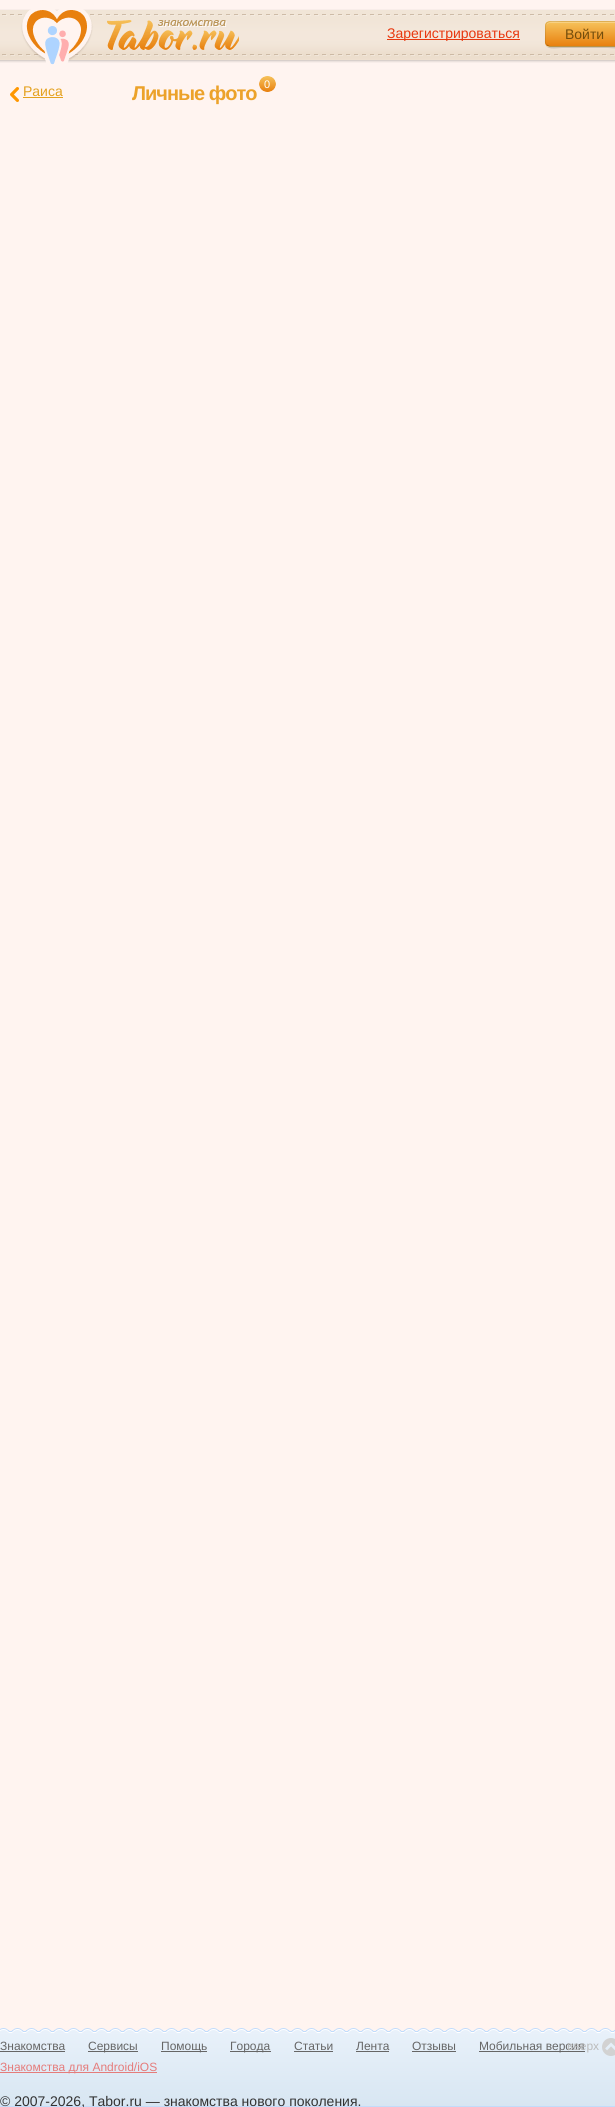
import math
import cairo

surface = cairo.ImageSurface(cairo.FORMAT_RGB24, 615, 2107)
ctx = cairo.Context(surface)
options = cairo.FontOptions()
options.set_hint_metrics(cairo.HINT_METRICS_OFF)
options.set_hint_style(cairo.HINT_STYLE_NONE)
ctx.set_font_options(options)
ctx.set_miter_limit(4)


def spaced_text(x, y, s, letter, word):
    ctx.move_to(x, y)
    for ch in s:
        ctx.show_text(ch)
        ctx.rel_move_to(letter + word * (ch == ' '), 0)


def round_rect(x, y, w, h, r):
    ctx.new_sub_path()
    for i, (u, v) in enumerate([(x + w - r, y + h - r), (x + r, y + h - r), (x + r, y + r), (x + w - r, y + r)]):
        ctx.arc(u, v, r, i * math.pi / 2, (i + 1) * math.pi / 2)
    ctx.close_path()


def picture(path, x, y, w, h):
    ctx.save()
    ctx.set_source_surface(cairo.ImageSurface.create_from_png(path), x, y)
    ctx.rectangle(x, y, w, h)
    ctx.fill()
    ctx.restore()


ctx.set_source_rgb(1, 0.957, 0.941)
ctx.paint()
picture("img1.png", 0, 9, 615, 54)
picture("img2.png", 21, 9, 218, 56)
ctx.set_source_rgb(0.91, 0.22, 0.059)
ctx.rectangle(387, 39, 133, 1)
ctx.fill()
ctx.select_font_face("Liberation Sans")
ctx.set_font_size(14)
ctx.move_to(387, 38)
ctx.show_text("Зарегистрироваться")
ctx.set_source_rgb(0.8, 0.757, 0.71)
ctx.new_path()
ctx.move_to(545, 42)
ctx.curve_to(545, 51, 556, 48, 562, 48)
ctx.line_to(608, 48)
ctx.curve_to(614, 48, 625, 51, 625, 42)
ctx.curve_to(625, 45, 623, 47, 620, 47)
ctx.line_to(550, 47)
ctx.curve_to(547, 47, 545, 45, 545, 42)
ctx.close_path()
ctx.fill()
ctx.set_source_rgb(0.965, 0.761, 0.357)
round_rect(545, 21, 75, 26, 5)
ctx.fill()
ctx.save()
round_rect(545, 21, 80, 26, 5)
ctx.clip()
gradient = cairo.LinearGradient(585, 22, 585, 46)
gradient.add_color_stop_rgba(0, 0.965, 0.761, 0.357, 1)
gradient.add_color_stop_rgba(1, 0.91, 0.502, 0.059, 1)
ctx.set_source(gradient)
ctx.rectangle(545, 22, 70, 24)
ctx.fill()
ctx.restore()
ctx.set_source_rgba(1, 1, 1, 0.25)
ctx.new_path()
ctx.move_to(550, 23)
ctx.line_to(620, 23)
ctx.curve_to(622, 23, 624, 25, 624, 27)
ctx.curve_to(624, 19, 613, 22, 608, 22)
ctx.line_to(562, 22)
ctx.curve_to(557, 22, 546, 19, 546, 27)
ctx.curve_to(546, 25, 548, 23, 550, 23)
ctx.close_path()
ctx.fill()
ctx.new_path()
ctx.move_to(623, 45)
ctx.line_to(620.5, 46.5)
ctx.line_to(549.5, 46.5)
ctx.line_to(547, 45)
ctx.set_source_rgba(0, 0, 0, 0.25)
ctx.set_line_width(1)
ctx.stroke()
ctx.new_path()
ctx.move_to(547, 45)
ctx.curve_to(544.5, 43, 545.5, 39.5, 545.5, 36.5)
ctx.curve_to(545.5, 20, 544, 21.5, 561.5, 21.5)
ctx.line_to(608.5, 21.5)
ctx.curve_to(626, 21.5, 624.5, 20, 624.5, 36.5)
ctx.curve_to(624.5, 39.5, 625.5, 43, 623, 45)
ctx.set_source_rgba(0, 0, 0, 0.1)
ctx.stroke()
ctx.set_source_rgb(0.451, 0.302, 0.047)
ctx.move_to(565, 39)
ctx.show_text("Войти")
picture("img3.png", 10, 87, 9, 15)
ctx.set_source_rgb(0.894, 0.631, 0.118)
ctx.move_to(23, 96)
ctx.show_text("Раиса")
ctx.rectangle(23, 97, 40, 1)
ctx.fill()
ctx.select_font_face("Liberation Sans", cairo.FONT_SLANT_NORMAL, cairo.FONT_WEIGHT_BOLD)
ctx.set_font_size(20)
ctx.set_source_rgb(0.925, 0.635, 0.165)
spaced_text(132, 100, "Личные фото", -1, 0)
gradient = cairo.LinearGradient(268, 76, 268, 92)
gradient.add_color_stop_rgba(0, 0.965, 0.761, 0.357, 1)
gradient.add_color_stop_rgba(1, 0.91, 0.502, 0.059, 1)
ctx.set_source(gradient)
round_rect(259, 76, 17, 16, 8)
ctx.fill()
round_rect(258, 75, 19, 18, 9)
ctx.set_source_rgb(1, 0.957, 0.941)
ctx.set_line_width(2)
ctx.stroke()
ctx.select_font_face("Liberation Sans")
ctx.set_font_size(11)
ctx.set_source_rgb(1, 1, 1)
ctx.move_to(264, 88)
ctx.show_text("0")
gradient = cairo.LinearGradient(308, 2031, 308, 2106)
gradient.add_color_stop_rgba(0, 0.91, 0.945, 0.98, 1)
gradient.add_color_stop_rgba(1, 0.847, 0.902, 0.949, 1)
ctx.set_source(gradient)
ctx.rectangle(0, 2033, 615, 73)
ctx.fill()
ctx.set_source_rgb(0.761, 0.863, 0.984)
ctx.rectangle(0, 2106, 615, 1)
ctx.fill()
picture("img4.png", 0, 2028, 615, 5)
ctx.set_font_size(12)
ctx.set_source_rgb(0.4, 0.4, 0.4)
ctx.move_to(0, 2050)
ctx.show_text("Знакомства")
ctx.rectangle(0, 2051, 65, 1)
ctx.fill()
ctx.rectangle(88, 2051, 50, 1)
ctx.fill()
ctx.move_to(88, 2050)
ctx.show_text("Сервисы")
ctx.rectangle(161, 2051, 46, 1)
ctx.fill()
ctx.move_to(161, 2050)
ctx.show_text("Помощь")
ctx.rectangle(230, 2051, 41, 1)
ctx.fill()
ctx.move_to(230, 2050)
ctx.show_text("Города")
ctx.move_to(294, 2050)
ctx.show_text("Статьи")
ctx.rectangle(294, 2051, 39, 1)
ctx.fill()
ctx.move_to(356, 2050)
ctx.show_text("Лента")
ctx.rectangle(356, 2051, 33, 1)
ctx.fill()
ctx.move_to(412, 2050)
ctx.show_text("Отзывы")
ctx.rectangle(412, 2051, 44, 1)
ctx.fill()
ctx.rectangle(479, 2051, 106, 1)
ctx.fill()
ctx.move_to(479, 2050)
ctx.show_text("Мобильная версия")
ctx.set_source_rgb(0.898, 0.486, 0.482)
ctx.rectangle(0, 2072, 157, 1)
ctx.fill()
ctx.move_to(0, 2071)
ctx.show_text("Знакомства для Android/iOS")
ctx.set_source_rgb(0.733, 0.733, 0.733)
ctx.move_to(567, 2050)
ctx.show_text("вверх")
picture("img5.png", 602, 2038, 13, 18)
ctx.set_font_size(14)
ctx.set_source_rgb(0.2, 0.2, 0.2)
ctx.move_to(0, 2106)
ctx.show_text("© 2007-2026, Tabor.ru — знакомства нового поколения.")
surface.write_to_png("page.png")
